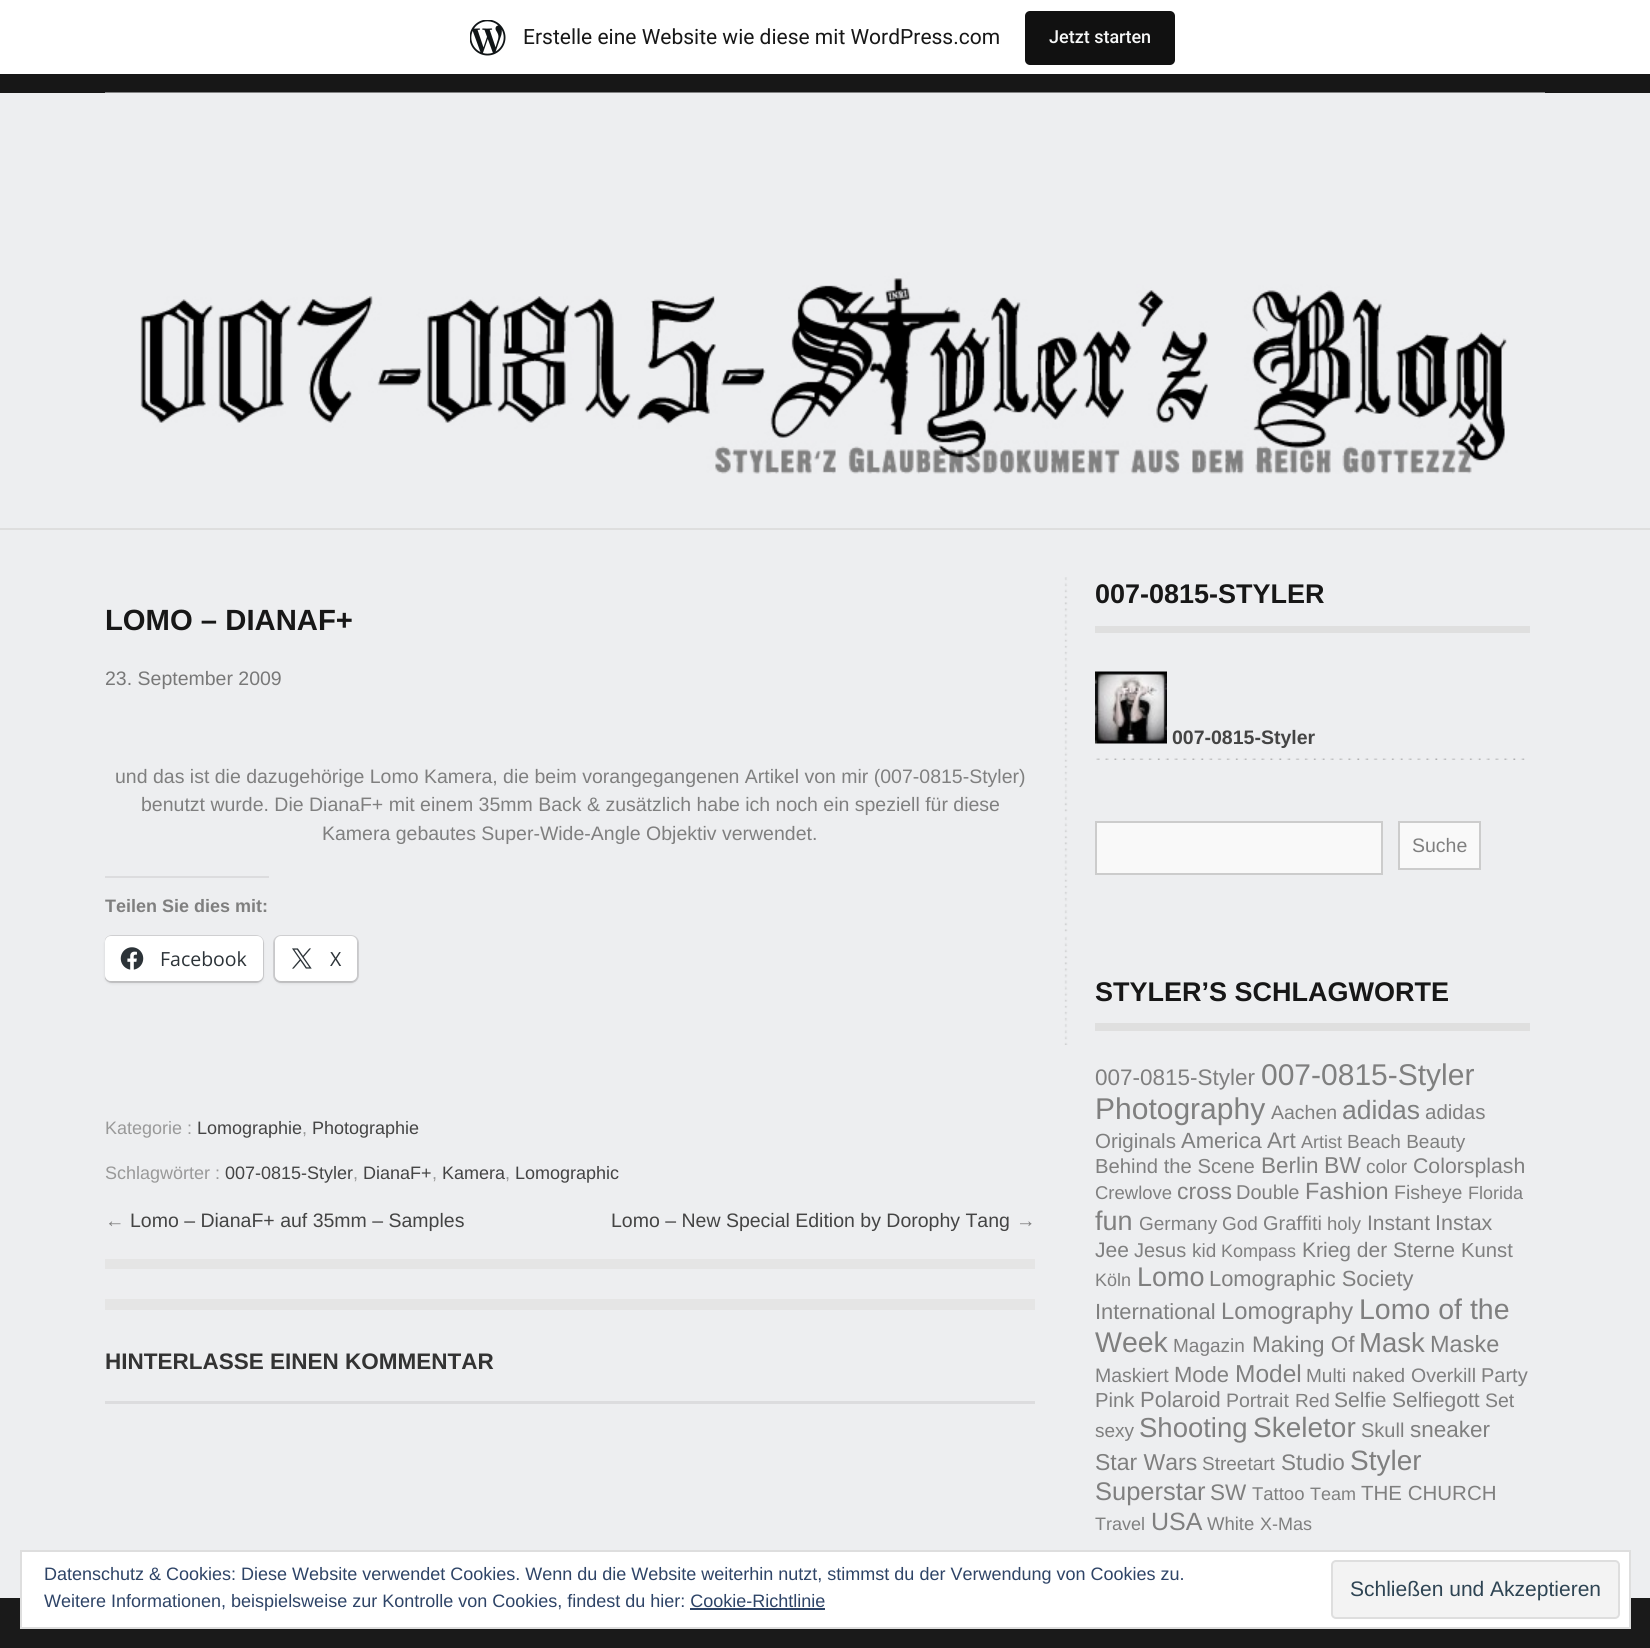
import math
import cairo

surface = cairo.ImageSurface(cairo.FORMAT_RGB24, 1650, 1648)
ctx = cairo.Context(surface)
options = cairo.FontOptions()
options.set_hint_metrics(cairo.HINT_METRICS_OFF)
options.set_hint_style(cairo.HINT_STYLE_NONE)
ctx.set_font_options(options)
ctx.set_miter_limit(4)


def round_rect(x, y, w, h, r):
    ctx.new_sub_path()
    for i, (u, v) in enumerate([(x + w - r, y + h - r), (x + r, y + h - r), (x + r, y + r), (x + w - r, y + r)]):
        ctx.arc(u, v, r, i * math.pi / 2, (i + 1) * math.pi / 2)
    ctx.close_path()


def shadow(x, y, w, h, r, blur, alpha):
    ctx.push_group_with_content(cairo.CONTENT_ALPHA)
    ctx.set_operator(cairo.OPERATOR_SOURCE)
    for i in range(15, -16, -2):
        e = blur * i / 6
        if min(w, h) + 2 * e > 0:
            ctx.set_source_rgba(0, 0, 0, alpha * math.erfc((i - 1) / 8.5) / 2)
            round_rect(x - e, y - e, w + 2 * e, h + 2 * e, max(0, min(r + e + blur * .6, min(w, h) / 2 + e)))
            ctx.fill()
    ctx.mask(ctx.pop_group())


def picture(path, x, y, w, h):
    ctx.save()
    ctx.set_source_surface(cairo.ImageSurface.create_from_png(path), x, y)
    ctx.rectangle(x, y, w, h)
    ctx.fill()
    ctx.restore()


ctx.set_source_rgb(0.929, 0.933, 0.941)
ctx.paint()
ctx.set_source_rgb(1, 1, 1)
ctx.rectangle(0, 0, 1650, 74)
ctx.fill()
picture("img1.png", 470, 20, 36, 36)
ctx.select_font_face("Roboto")
ctx.set_font_size(21)
ctx.set_source_rgb(0.09, 0.09, 0.09)
ctx.move_to(523, 44)
ctx.show_text("Erstelle eine Website wie diese mit WordPress.com")
ctx.set_source_rgb(0.067, 0.067, 0.067)
round_rect(1025, 11, 150, 54, 5)
ctx.fill()
ctx.select_font_face("Roboto Medium")
ctx.set_font_size(18)
ctx.set_source_rgb(0.965, 0.969, 0.969)
ctx.move_to(1049, 43)
ctx.show_text("Jetzt starten")
ctx.set_source_rgb(0.102, 0.102, 0.102)
ctx.rectangle(0, 1598, 1650, 50)
ctx.fill()
ctx.set_source_rgb(0.09, 0.09, 0.09)
ctx.rectangle(0, 74, 1650, 19)
ctx.fill()
ctx.set_source_rgb(0.871, 0.871, 0.871)
ctx.rectangle(0, 528, 1650, 2)
ctx.fill()
picture("img2.png", 105, 92, 1440, 382)
picture("img3.png", 1064, 577, 4, 468)
ctx.set_source_rgb(0.898, 0.898, 0.898)
ctx.rectangle(105, 1259, 930, 10)
ctx.fill()
ctx.select_font_face("Liberation Sans", cairo.FONT_SLANT_NORMAL, cairo.FONT_WEIGHT_BOLD)
ctx.set_font_size(29.25)
ctx.set_source_rgb(0.09, 0.09, 0.09)
ctx.move_to(105, 630)
ctx.show_text("LOMO – DIANAF+")
ctx.select_font_face("Liberation Sans")
ctx.set_font_size(19.5)
ctx.set_source_rgb(0.471, 0.471, 0.471)
ctx.move_to(105, 685)
ctx.show_text("23. September 2009")
ctx.set_source_rgb(0.498, 0.498, 0.498)
ctx.move_to(115, 783)
ctx.show_text("und das ist die dazugehörige Lomo Kamera, die beim vorangegangenen Artikel von mir (007-0815-Styler)")
ctx.move_to(141, 811)
ctx.show_text("benutzt wurde. Die DianaF+ mit einem 35mm Back & zusätzlich habe ich noch ein speziell für diese")
ctx.move_to(322, 840)
ctx.show_text("Kamera gebautes Super-Wide-Angle Objektiv verwendet.")
ctx.set_source_rgb(0.863, 0.863, 0.871)
ctx.rectangle(105, 876, 164, 2)
ctx.fill()
ctx.select_font_face("Liberation Sans", cairo.FONT_SLANT_NORMAL, cairo.FONT_WEIGHT_BOLD)
ctx.set_font_size(18)
ctx.set_source_rgb(0.498, 0.498, 0.498)
ctx.move_to(105, 912)
ctx.show_text("Teilen Sie dies mit:")
ctx.save()
ctx.rectangle(105, 575, 960, 829)
ctx.clip()
round_rect(105, 936, 158, 46, 7)
ctx.set_source_rgb(0.82, 0.82, 0.827)
ctx.stroke()
ctx.restore()
ctx.save()
ctx.set_fill_rule(cairo.FILL_RULE_EVEN_ODD)
ctx.new_path()
ctx.move_to(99, 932)
ctx.line_to(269, 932)
ctx.line_to(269, 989)
ctx.line_to(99, 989)
ctx.close_path()
ctx.move_to(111, 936)
ctx.line_to(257, 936)
ctx.curve_to(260.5, 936, 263, 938.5, 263, 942)
ctx.line_to(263, 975)
ctx.curve_to(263, 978.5, 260.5, 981, 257, 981)
ctx.line_to(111, 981)
ctx.curve_to(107.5, 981, 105, 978.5, 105, 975)
ctx.line_to(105, 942)
ctx.curve_to(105, 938.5, 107.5, 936, 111, 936)
ctx.close_path()
ctx.clip()
ctx.set_source_rgb(0, 0, 0)
shadow(105, 938, 158, 45, 6, 1.5, 0.12)
ctx.restore()
ctx.set_source_rgb(1, 1, 1)
round_rect(105, 936, 158, 45, 6)
ctx.fill()
picture("img4.png", 120, 947, 24, 23)
ctx.select_font_face("Open Sans")
ctx.set_font_size(19.5)
ctx.set_source_rgb(0.173, 0.2, 0.22)
ctx.move_to(160, 966)
ctx.show_text("Facebook")
round_rect(274, 936, 84, 46, 7)
ctx.set_source_rgb(0.82, 0.82, 0.827)
ctx.stroke()
ctx.set_source_rgb(0, 0, 0)
shadow(275, 938, 82, 45, 6, 1.5, 0.12)
ctx.set_source_rgb(1, 1, 1)
round_rect(275, 936, 82, 45, 6)
ctx.fill()
picture("img5.png", 292, 948, 20, 21)
ctx.set_source_rgb(0.173, 0.2, 0.22)
ctx.move_to(330, 966)
ctx.show_text("X")
ctx.select_font_face("Liberation Sans")
ctx.set_font_size(18)
ctx.set_source_rgb(0.6, 0.6, 0.6)
ctx.move_to(105, 1134)
ctx.show_text("Kategorie :")
ctx.set_source_rgb(0.267, 0.267, 0.267)
ctx.move_to(197, 1134)
ctx.show_text("Lomographie")
ctx.set_source_rgb(0.6, 0.6, 0.6)
ctx.move_to(302, 1134)
ctx.show_text(",")
ctx.set_source_rgb(0.267, 0.267, 0.267)
ctx.move_to(312, 1134)
ctx.show_text("Photographie")
ctx.set_source_rgb(0.6, 0.6, 0.6)
ctx.move_to(105, 1179)
ctx.show_text("Schlagwörter :")
ctx.set_source_rgb(0.267, 0.267, 0.267)
ctx.move_to(225, 1179)
ctx.show_text("007-0815-Styler")
ctx.set_source_rgb(0.6, 0.6, 0.6)
ctx.move_to(353, 1179)
ctx.show_text(",")
ctx.set_source_rgb(0.267, 0.267, 0.267)
ctx.move_to(363, 1179)
ctx.show_text("DianaF+")
ctx.set_source_rgb(0.6, 0.6, 0.6)
ctx.move_to(432, 1179)
ctx.show_text(",")
ctx.set_source_rgb(0.267, 0.267, 0.267)
ctx.move_to(442, 1179)
ctx.show_text("Kamera")
ctx.set_source_rgb(0.6, 0.6, 0.6)
ctx.move_to(505, 1179)
ctx.show_text(",")
ctx.set_source_rgb(0.267, 0.267, 0.267)
ctx.move_to(515, 1179)
ctx.show_text("Lomographic")
ctx.set_font_size(19.5)
ctx.set_source_rgb(0.498, 0.498, 0.498)
ctx.move_to(105, 1227)
ctx.show_text("←")
ctx.set_source_rgb(0.267, 0.267, 0.267)
ctx.move_to(130, 1227)
ctx.show_text("Lomo – DianaF+ auf 35mm – Samples")
ctx.move_to(611, 1227)
ctx.show_text("Lomo – New Special Edition by Dorophy Tang")
ctx.set_source_rgb(0.498, 0.498, 0.498)
ctx.move_to(1016, 1227)
ctx.show_text("→")
ctx.set_source_rgb(0.898, 0.898, 0.898)
ctx.rectangle(105, 1299, 930, 11)
ctx.fill()
ctx.select_font_face("Liberation Sans", cairo.FONT_SLANT_NORMAL, cairo.FONT_WEIGHT_BOLD)
ctx.set_font_size(22.5)
ctx.set_source_rgb(0.2, 0.2, 0.2)
ctx.move_to(105, 1369)
ctx.show_text("HINTERLASSE EINEN KOMMENTAR")
ctx.set_source_rgb(0.863, 0.863, 0.871)
ctx.rectangle(105, 1401, 930, 3)
ctx.fill()
ctx.set_source_rgb(0.875, 0.875, 0.875)
ctx.rectangle(1095, 626, 435, 7)
ctx.fill()
ctx.set_font_size(27)
ctx.set_source_rgb(0.09, 0.09, 0.09)
ctx.move_to(1095, 603)
ctx.show_text("007-0815-STYLER")
picture("img6.png", 1096, 758, 429, 2)
picture("img7.png", 1095, 671, 72, 73)
ctx.set_font_size(19.5)
ctx.set_source_rgb(0.267, 0.267, 0.267)
ctx.move_to(1172, 744)
ctx.show_text("007-0815-Styler")
ctx.set_source_rgb(0.976, 0.976, 0.976)
ctx.rectangle(1096, 822, 286, 52)
ctx.fill_preserve()
ctx.set_source_rgb(0.8, 0.8, 0.8)
ctx.stroke()
ctx.set_source_rgb(0.976, 0.976, 0.976)
ctx.rectangle(1399, 822, 81, 47)
ctx.fill_preserve()
ctx.set_source_rgb(0.8, 0.8, 0.8)
ctx.stroke()
ctx.select_font_face("Liberation Sans")
ctx.set_source_rgb(0.498, 0.498, 0.498)
ctx.move_to(1412, 852)
ctx.show_text("Suche")
ctx.set_source_rgb(0.875, 0.875, 0.875)
ctx.rectangle(1095, 1023, 435, 8)
ctx.fill()
ctx.select_font_face("Liberation Sans", cairo.FONT_SLANT_NORMAL, cairo.FONT_WEIGHT_BOLD)
ctx.set_font_size(27)
ctx.set_source_rgb(0.09, 0.09, 0.09)
ctx.move_to(1095, 1001)
ctx.show_text("STYLER’S SCHLAGWORTE")
ctx.select_font_face("Liberation Sans")
ctx.set_font_size(22.5)
ctx.set_source_rgb(0.498, 0.498, 0.498)
ctx.move_to(1095, 1085)
ctx.show_text("007-0815-Styler")
ctx.set_font_size(30)
ctx.move_to(1261, 1085)
ctx.show_text("007-0815-Styler")
ctx.move_to(1095, 1119)
ctx.show_text("Photography")
ctx.set_font_size(19.5)
ctx.move_to(1271, 1119)
ctx.show_text("Aachen")
ctx.set_font_size(26.5)
ctx.move_to(1342, 1119)
ctx.show_text("adidas")
ctx.set_font_size(20.5)
ctx.move_to(1425, 1119)
ctx.show_text("adidas")
ctx.move_to(1095, 1148)
ctx.show_text("Originals")
ctx.set_font_size(22)
ctx.move_to(1181, 1148)
ctx.show_text("America")
ctx.set_font_size(22.5)
ctx.move_to(1267, 1148)
ctx.show_text("Art")
ctx.set_font_size(18)
ctx.move_to(1301, 1148)
ctx.show_text("Artist")
ctx.set_font_size(19)
ctx.move_to(1347, 1148)
ctx.show_text("Beach Beauty")
ctx.set_font_size(20.25)
ctx.move_to(1095, 1173)
ctx.show_text("Behind the Scene")
ctx.set_font_size(22.5)
ctx.move_to(1261, 1173)
ctx.show_text("Berlin")
ctx.set_font_size(23)
ctx.move_to(1324, 1173)
ctx.show_text("BW")
ctx.set_font_size(19)
ctx.move_to(1366, 1173)
ctx.show_text("color")
ctx.set_font_size(21.25)
ctx.move_to(1413, 1173)
ctx.show_text("Colorsplash")
ctx.set_font_size(18.5)
ctx.move_to(1095, 1199)
ctx.show_text("Crewlove")
ctx.set_font_size(23)
ctx.move_to(1177, 1199)
ctx.show_text("cross")
ctx.set_font_size(20)
ctx.move_to(1236, 1199)
ctx.show_text("Double")
ctx.set_font_size(23.5)
ctx.move_to(1305, 1199)
ctx.show_text("Fashion")
ctx.set_font_size(19.5)
ctx.move_to(1394, 1199)
ctx.show_text("Fisheye")
ctx.set_font_size(18)
ctx.move_to(1468, 1199)
ctx.show_text("Florida")
ctx.set_font_size(27)
ctx.move_to(1095, 1230)
ctx.show_text("fun")
ctx.set_font_size(19)
ctx.move_to(1139, 1230)
ctx.show_text("Germany")
ctx.move_to(1222, 1230)
ctx.show_text("God")
ctx.set_font_size(20)
ctx.move_to(1263, 1230)
ctx.show_text("Graffiti")
ctx.set_font_size(18.5)
ctx.move_to(1327, 1230)
ctx.show_text("holy")
ctx.set_font_size(21)
ctx.move_to(1367, 1230)
ctx.show_text("Instant")
ctx.set_font_size(21.5)
ctx.move_to(1435, 1230)
ctx.show_text("Instax")
ctx.set_font_size(21)
ctx.move_to(1095, 1257)
ctx.show_text("Jee")
ctx.set_font_size(20)
ctx.move_to(1134, 1257)
ctx.show_text("Jesus")
ctx.set_font_size(19)
ctx.move_to(1192, 1257)
ctx.show_text("kid")
ctx.set_font_size(18)
ctx.move_to(1221, 1257)
ctx.show_text("Kompass")
ctx.set_font_size(21)
ctx.move_to(1302, 1257)
ctx.show_text("Krieg der Sterne")
ctx.set_font_size(20.25)
ctx.move_to(1461, 1257)
ctx.show_text("Kunst")
ctx.set_font_size(18)
ctx.move_to(1095, 1286)
ctx.show_text("Köln")
ctx.set_font_size(27)
ctx.move_to(1137, 1286)
ctx.show_text("Lomo")
ctx.set_font_size(21.9)
ctx.move_to(1209, 1286)
ctx.show_text("Lomographic Society")
ctx.move_to(1095, 1319)
ctx.show_text("International")
ctx.set_font_size(23.75)
ctx.move_to(1221, 1319)
ctx.show_text("Lomography")
ctx.set_font_size(28.5)
ctx.move_to(1359, 1319)
ctx.show_text("Lomo of the")
ctx.move_to(1095, 1352)
ctx.show_text("Week")
ctx.set_font_size(19)
ctx.move_to(1173, 1352)
ctx.show_text("Magazin")
ctx.set_font_size(22.5)
ctx.move_to(1252, 1352)
ctx.show_text("Making Of")
ctx.set_font_size(27.5)
ctx.move_to(1359, 1352)
ctx.show_text("Mask")
ctx.set_font_size(23.5)
ctx.move_to(1430, 1352)
ctx.show_text("Maske")
ctx.set_font_size(19.5)
ctx.move_to(1095, 1382)
ctx.show_text("Maskiert")
ctx.set_font_size(22)
ctx.move_to(1174, 1382)
ctx.show_text("Mode")
ctx.set_font_size(24.5)
ctx.move_to(1235, 1382)
ctx.show_text("Model")
ctx.set_font_size(19)
ctx.move_to(1306, 1382)
ctx.show_text("Multi")
ctx.set_font_size(19.5)
ctx.move_to(1352, 1382)
ctx.show_text("naked")
ctx.move_to(1411, 1382)
ctx.show_text("Overkill")
ctx.set_font_size(20)
ctx.move_to(1481, 1382)
ctx.show_text("Party")
ctx.set_font_size(20.25)
ctx.move_to(1095, 1407)
ctx.show_text("Pink")
ctx.set_font_size(22)
ctx.move_to(1140, 1407)
ctx.show_text("Polaroid")
ctx.set_font_size(19.5)
ctx.move_to(1226, 1407)
ctx.show_text("Portrait")
ctx.set_font_size(19)
ctx.move_to(1295, 1407)
ctx.show_text("Red")
ctx.set_font_size(21)
ctx.move_to(1334, 1407)
ctx.show_text("Selfie")
ctx.move_to(1392, 1407)
ctx.show_text("Selfiegott")
ctx.set_font_size(19.5)
ctx.move_to(1485, 1407)
ctx.show_text("Set")
ctx.set_font_size(19)
ctx.move_to(1095, 1437)
ctx.show_text("sexy")
ctx.set_font_size(27.5)
ctx.move_to(1139, 1437)
ctx.show_text("Shooting")
ctx.set_font_size(28)
ctx.move_to(1253, 1437)
ctx.show_text("Skeletor")
ctx.set_font_size(20)
ctx.move_to(1361, 1437)
ctx.show_text("Skull")
ctx.set_font_size(22.5)
ctx.move_to(1410, 1437)
ctx.show_text("sneaker")
ctx.set_font_size(23)
ctx.move_to(1095, 1470)
ctx.show_text("Star Wars")
ctx.set_font_size(19)
ctx.move_to(1202, 1470)
ctx.show_text("Streetart")
ctx.set_font_size(22.5)
ctx.move_to(1281, 1470)
ctx.show_text("Studio")
ctx.set_font_size(28)
ctx.move_to(1350, 1470)
ctx.show_text("Styler")
ctx.set_font_size(25.5)
ctx.move_to(1095, 1500)
ctx.show_text("Superstar")
ctx.set_font_size(22.5)
ctx.move_to(1210, 1500)
ctx.show_text("SW")
ctx.set_font_size(18.5)
ctx.move_to(1252, 1500)
ctx.show_text("Tattoo")
ctx.set_font_size(18)
ctx.move_to(1310, 1500)
ctx.show_text("Team")
ctx.set_font_size(20.5)
ctx.move_to(1361, 1500)
ctx.show_text("THE CHURCH")
ctx.set_font_size(18)
ctx.move_to(1095, 1530)
ctx.show_text("Travel")
ctx.set_font_size(25)
ctx.move_to(1151, 1530)
ctx.show_text("USA")
ctx.set_font_size(18.5)
ctx.move_to(1207, 1530)
ctx.show_text("White")
ctx.set_font_size(18)
ctx.move_to(1260, 1530)
ctx.show_text("X-Mas")
ctx.set_source_rgb(1, 1, 1)
ctx.rectangle(21, 1551, 1609, 77)
ctx.fill_preserve()
ctx.set_source_rgb(0.871, 0.871, 0.871)
ctx.stroke()
ctx.set_source_rgb(0.18, 0.267, 0.404)
ctx.move_to(44, 1580)
ctx.show_text("Datenschutz & Cookies: Diese Website verwendet Cookies. Wenn du die Website weiterhin nutzt, stimmst du der Verwendung von Cookies zu.")
ctx.move_to(44, 1607)
ctx.show_text("Weitere Informationen, beispielsweise zur Kontrolle von Cookies, findest du hier: Cookie-Richtlinie")
ctx.set_source_rgb(0.953, 0.953, 0.953)
round_rect(1332, 1561, 287, 57, 4)
ctx.fill_preserve()
ctx.set_source_rgb(0.871, 0.871, 0.871)
ctx.stroke()
ctx.set_font_size(21)
ctx.set_source_rgb(0.18, 0.267, 0.325)
ctx.move_to(1350, 1596)
ctx.show_text("Schließen und Akzeptieren")
ctx.set_source_rgb(0.18, 0.267, 0.404)
ctx.rectangle(690, 1608, 135, 2)
ctx.fill()
surface.write_to_png("page.png")
